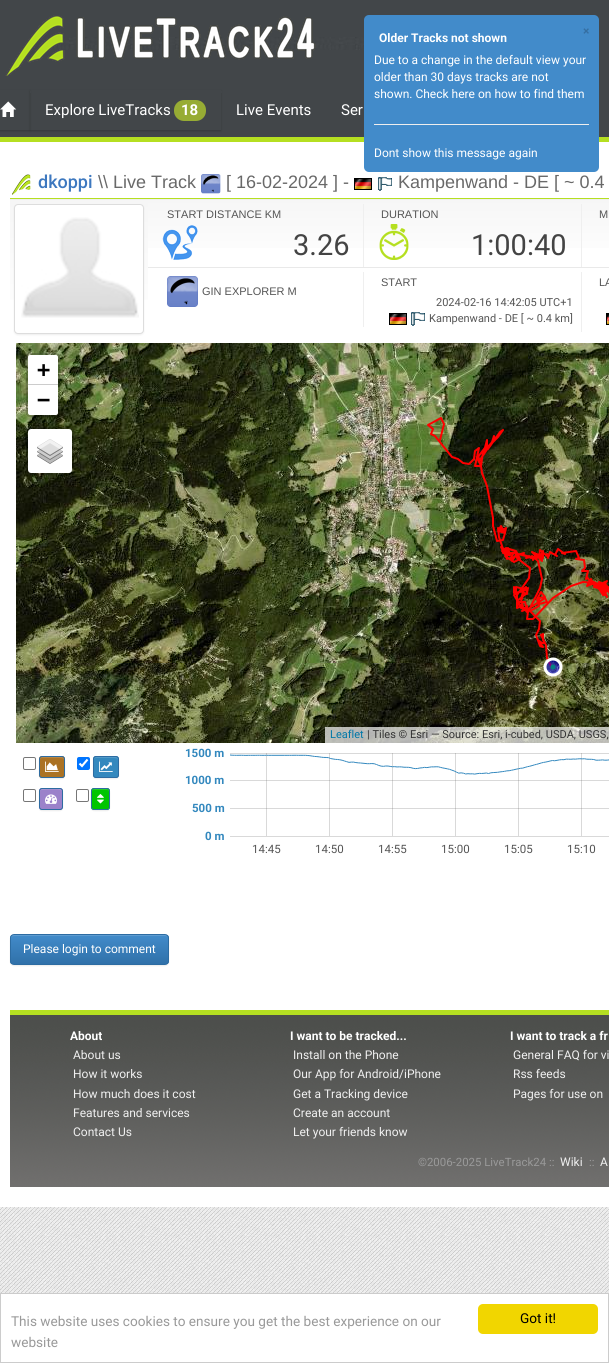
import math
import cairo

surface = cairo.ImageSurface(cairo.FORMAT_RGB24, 609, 1363)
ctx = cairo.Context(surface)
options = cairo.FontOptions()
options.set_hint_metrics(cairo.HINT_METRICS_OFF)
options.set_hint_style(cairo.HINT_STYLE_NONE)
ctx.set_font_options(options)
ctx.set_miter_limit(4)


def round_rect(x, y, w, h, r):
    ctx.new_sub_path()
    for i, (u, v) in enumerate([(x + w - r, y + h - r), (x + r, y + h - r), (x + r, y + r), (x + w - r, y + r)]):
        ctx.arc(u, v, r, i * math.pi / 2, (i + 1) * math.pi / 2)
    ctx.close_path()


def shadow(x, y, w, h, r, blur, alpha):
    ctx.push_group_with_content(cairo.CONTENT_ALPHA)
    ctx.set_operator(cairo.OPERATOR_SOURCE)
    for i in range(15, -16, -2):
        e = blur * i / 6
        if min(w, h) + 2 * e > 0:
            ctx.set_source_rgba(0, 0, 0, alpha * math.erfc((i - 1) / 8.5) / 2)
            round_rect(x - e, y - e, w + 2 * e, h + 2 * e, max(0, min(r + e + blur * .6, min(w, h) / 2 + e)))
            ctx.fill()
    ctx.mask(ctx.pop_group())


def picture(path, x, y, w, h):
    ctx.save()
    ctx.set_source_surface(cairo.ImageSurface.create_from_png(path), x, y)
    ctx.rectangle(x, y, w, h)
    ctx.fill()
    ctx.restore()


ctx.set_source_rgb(1, 1, 1)
ctx.paint()
picture("img1.png", 0, 1207, 609, 86)
ctx.set_source_rgb(0.259, 0.275, 0.286)
ctx.rectangle(0, 0, 609, 137)
ctx.fill()
ctx.set_source_rgb(0.71, 0.875, 0.129)
ctx.rectangle(0, 137, 609, 5)
ctx.fill()
ctx.set_source_rgb(0.259, 0.545, 0.792)
round_rect(364, 15, 235, 157, 5)
ctx.fill()
ctx.select_font_face("Roboto", cairo.FONT_SLANT_NORMAL, cairo.FONT_WEIGHT_BOLD)
ctx.set_font_size(12)
ctx.set_source_rgb(0.208, 0.435, 0.635)
ctx.move_to(583, 35)
ctx.show_text("×")
ctx.set_source_rgb(1, 1, 1)
ctx.move_to(379, 42)
ctx.show_text("Older Tracks not shown")
ctx.select_font_face("Roboto")
ctx.move_to(374, 64)
ctx.show_text("Due to a change in the default view your")
ctx.move_to(374, 81)
ctx.show_text("older than 30 days tracks are not")
ctx.move_to(374, 98)
ctx.show_text("shown. Check here on how to find them")
ctx.set_source_rgb(0.933, 0.933, 0.933)
ctx.rectangle(374, 124, 215, 1)
ctx.fill()
ctx.set_source_rgb(1, 1, 1)
ctx.move_to(374, 157)
ctx.show_text("Dont show this message again")
picture("img2.png", 40, 37, 324, 13)
picture("img3.png", 5, 15, 311, 61)
ctx.save()
ctx.set_fill_rule(cairo.FILL_RULE_EVEN_ODD)
ctx.new_path()
ctx.move_to(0, 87)
ctx.line_to(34, 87)
ctx.line_to(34, 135)
ctx.line_to(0, 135)
ctx.close_path()
ctx.move_to(-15, 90)
ctx.line_to(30, 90)
ctx.line_to(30, 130)
ctx.line_to(-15, 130)
ctx.close_path()
ctx.clip()
ctx.set_source_rgb(0, 0, 0)
shadow(-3, 91, 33, 40, 0, 1, 0.2)
ctx.restore()
picture("img4.png", 0, 101, 17, 16)
ctx.save()
ctx.set_fill_rule(cairo.FILL_RULE_EVEN_ODD)
ctx.new_path()
ctx.move_to(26, 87)
ctx.line_to(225, 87)
ctx.line_to(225, 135)
ctx.line_to(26, 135)
ctx.close_path()
ctx.move_to(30, 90)
ctx.line_to(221, 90)
ctx.line_to(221, 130)
ctx.line_to(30, 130)
ctx.close_path()
ctx.clip()
ctx.set_source_rgb(0, 0, 0)
shadow(30, 91, 191, 40, 0, 1, 0.2)
ctx.restore()
ctx.set_source_rgb(0.259, 0.275, 0.286)
ctx.rectangle(30, 91, 1, 2)
ctx.fill()
ctx.set_font_size(15)
ctx.set_source_rgb(1, 1, 1)
ctx.move_to(45, 115)
ctx.show_text("Explore LiveTracks")
ctx.set_source_rgb(0.592, 0.675, 0.204)
round_rect(174, 100, 32, 21, 10)
ctx.fill()
ctx.select_font_face("Roboto", cairo.FONT_SLANT_NORMAL, cairo.FONT_WEIGHT_BOLD)
ctx.set_source_rgb(1, 1, 1)
ctx.move_to(181, 115)
ctx.show_text("18")
ctx.set_source_rgb(0.259, 0.275, 0.286)
ctx.rectangle(221, 91, 1, 2)
ctx.fill()
ctx.select_font_face("Roboto")
ctx.set_source_rgb(1, 1, 1)
ctx.move_to(236, 115)
ctx.show_text("Live Events")
ctx.move_to(341, 115)
ctx.show_text("Ser")
picture("img5.png", 12, 174, 19, 21)
ctx.set_source_rgb(0.71, 0.875, 0.129)
ctx.rectangle(10, 198, 599, 1)
ctx.fill()
ctx.select_font_face("Roboto Medium")
ctx.set_font_size(18)
ctx.set_source_rgb(0.239, 0.471, 0.749)
ctx.move_to(38, 188)
ctx.show_text("dkoppi")
ctx.select_font_face("Liberation Sans")
ctx.set_source_rgb(0.412, 0.412, 0.412)
ctx.move_to(98, 188)
ctx.show_text("\\\\ Live Track")
picture("img6.png", 201, 174, 20, 20)
ctx.move_to(226, 188)
ctx.show_text("[ 16-02-2024 ] -")
picture("img7.png", 354, 178, 18, 12)
picture("img8.png", 378, 177, 14, 14)
ctx.move_to(398, 188)
ctx.show_text("Kampenwand - DE [ ~ 0.4")
gradient = cairo.LinearGradient(79, 200, 79, 338)
gradient.add_color_stop_rgba(0, 0.965, 0.965, 0.965, 1)
gradient.add_color_stop_rgba(1, 1, 1, 1, 1)
ctx.set_source(gradient)
ctx.rectangle(10, 200, 138, 100)
ctx.fill()
ctx.set_source_rgb(0.937, 0.937, 0.937)
ctx.rectangle(10, 199, 599, 1)
ctx.fill()
ctx.set_source_rgb(0, 0, 0)
shadow(14, 205, 130, 130, 4, 1, 0.07)
ctx.set_source_rgb(1, 1, 1)
round_rect(14.5, 204.5, 129, 129, 3.5)
ctx.fill_preserve()
ctx.set_source_rgb(0.867, 0.867, 0.867)
ctx.set_line_width(1)
ctx.stroke()
picture("img9.png", 21, 217, 118, 101)
gradient = cairo.LinearGradient(589, 200, 589, 267)
gradient.add_color_stop_rgba(0, 0.965, 0.965, 0.965, 1)
gradient.add_color_stop_rgba(1, 1, 1, 1, 1)
ctx.set_source(gradient)
ctx.rectangle(148, 200, 461, 48)
ctx.fill()
ctx.set_source_rgb(0.914, 0.914, 0.914)
ctx.rectangle(148, 267, 461, 1)
ctx.fill()
picture("img10.png", 162, 225, 36, 35)
ctx.set_source_rgb(0.937, 0.937, 0.937)
ctx.rectangle(363, 204, 1, 63)
ctx.fill()
ctx.set_font_size(11)
ctx.set_source_rgb(0.333, 0.333, 0.333)
ctx.move_to(167, 218)
ctx.show_text("START DISTANCE KM")
ctx.select_font_face("Roboto")
ctx.set_font_size(29)
ctx.set_source_rgb(0.267, 0.267, 0.267)
ctx.move_to(293, 255)
ctx.show_text("3.26")
picture("img11.png", 379, 224, 30, 36)
ctx.set_source_rgb(0.937, 0.937, 0.937)
ctx.rectangle(581, 204, 1, 63)
ctx.fill()
ctx.select_font_face("Liberation Sans")
ctx.set_font_size(11)
ctx.set_source_rgb(0.333, 0.333, 0.333)
ctx.move_to(381, 218)
ctx.show_text("DURATION")
ctx.select_font_face("Roboto")
ctx.set_font_size(29)
ctx.set_source_rgb(0.267, 0.267, 0.267)
ctx.move_to(471, 255)
ctx.show_text("1:00:40")
ctx.select_font_face("Liberation Sans")
ctx.set_font_size(11)
ctx.set_source_rgb(0.333, 0.333, 0.333)
ctx.move_to(599, 218)
ctx.show_text("M")
ctx.set_source_rgb(0.937, 0.937, 0.937)
ctx.rectangle(581, 272, 1, 60)
ctx.fill()
ctx.set_source_rgb(0.333, 0.333, 0.333)
ctx.move_to(381, 286)
ctx.show_text("START")
ctx.select_font_face("Roboto")
ctx.move_to(436, 306)
ctx.show_text("2024-02-16 14:42:05 UTC+1")
picture("img7.png", 389, 313, 18, 12)
picture("img8.png", 411, 312, 14, 14)
ctx.move_to(429, 322)
ctx.show_text("Kampenwand - DE [ ~ 0.4 km]")
ctx.select_font_face("Liberation Sans")
ctx.move_to(599, 286)
ctx.show_text("LA")
picture("img12.png", 606, 313, 3, 12)
ctx.set_source_rgb(0.937, 0.937, 0.937)
ctx.rectangle(363, 272, 1, 55)
ctx.fill()
picture("img13.png", 167, 276, 31, 31)
ctx.set_source_rgb(0.333, 0.333, 0.333)
ctx.move_to(202, 295)
ctx.show_text("GIN EXPLORER M")
picture("img14.png", 16, 343, 256, 64)
picture("img15.png", 272, 343, 256, 64)
picture("img16.png", 528, 343, 81, 64)
picture("img17.png", 16, 407, 256, 256)
picture("img18.png", 272, 407, 256, 256)
picture("img19.png", 528, 407, 81, 256)
picture("img20.png", 16, 663, 256, 80)
picture("img21.png", 272, 663, 256, 80)
picture("img22.png", 528, 663, 81, 80)
picture("img23.png", 427, 417, 182, 260)
round_rect(27, 354, 32, 62, 3)
ctx.set_source_rgba(0, 0, 0, 0.2)
ctx.set_line_width(2)
ctx.stroke()
ctx.set_source_rgb(1, 1, 1)
ctx.new_path()
ctx.move_to(30, 355)
ctx.line_to(56, 355)
ctx.curve_to(57, 355, 58, 356, 58, 357)
ctx.line_to(58, 385)
ctx.line_to(28, 385)
ctx.line_to(28, 357)
ctx.curve_to(28, 356, 29, 355, 30, 355)
ctx.close_path()
ctx.fill()
ctx.set_source_rgb(0.8, 0.8, 0.8)
ctx.rectangle(28, 384, 30, 1)
ctx.fill()
ctx.select_font_face("DejaVu Sans Mono", cairo.FONT_SLANT_NORMAL, cairo.FONT_WEIGHT_BOLD)
ctx.set_font_size(22)
ctx.set_source_rgb(0, 0, 0)
ctx.move_to(37, 377)
ctx.show_text("+")
ctx.set_source_rgb(1, 1, 1)
ctx.new_path()
ctx.move_to(28, 385)
ctx.line_to(58, 385)
ctx.line_to(58, 413)
ctx.curve_to(58, 414, 57, 415, 56, 415)
ctx.line_to(30, 415)
ctx.curve_to(29, 415, 28, 414, 28, 413)
ctx.close_path()
ctx.fill()
ctx.set_source_rgb(0, 0, 0)
ctx.move_to(37, 407)
ctx.show_text("−")
ctx.set_source_rgb(1, 1, 1)
round_rect(28, 429, 44, 44, 3)
ctx.fill()
round_rect(27, 428, 46, 46, 4)
ctx.set_source_rgba(0, 0, 0, 0.2)
ctx.stroke()
picture("img24.png", 37, 439, 26, 25)
ctx.set_source_rgba(1, 1, 1, 0.7)
ctx.rectangle(325, 727, 284, 16)
ctx.fill()
ctx.select_font_face("Roboto")
ctx.set_font_size(11)
ctx.set_source_rgb(0, 0.471, 0.659)
ctx.move_to(330, 738)
ctx.show_text("Leaflet")
ctx.set_source_rgb(0.2, 0.2, 0.2)
ctx.move_to(367, 738)
ctx.show_text("| Tiles © Esri — Source: Esri, i-cubed, USDA, USGS,")
round_rect(23.5, 757.5, 12, 12, 1.5)
ctx.set_source_rgb(0.463, 0.463, 0.463)
ctx.set_line_width(1)
ctx.stroke()
ctx.set_source_rgb(0, 0, 0)
shadow(39, 757, 26, 22, 3, 0.5, 0.07)
ctx.set_source_rgb(0.671, 0.447, 0.141)
round_rect(39, 756, 26, 22, 3)
ctx.fill()
ctx.set_source_rgb(0.722, 0.529, 0.271)
ctx.new_path()
ctx.move_to(42, 758)
ctx.line_to(59, 758)
ctx.curve_to(62, 758, 63.5, 758.5, 64, 759.5)
ctx.curve_to(64, 756.5, 61.5, 757, 58.5, 757)
ctx.line_to(45.5, 757)
ctx.curve_to(42.5, 757, 40, 756.5, 40, 759.5)
ctx.curve_to(40.5, 758.5, 41, 758, 42, 758)
ctx.close_path()
ctx.fill()
round_rect(39.5, 756.5, 25, 21, 2.5)
ctx.set_source_rgb(0.176, 0.424, 0.635)
ctx.stroke()
picture("img25.png", 45, 761, 14, 11)
ctx.set_source_rgb(0, 0.459, 1)
round_rect(77, 757, 13, 13, 2)
ctx.fill()
ctx.new_path()
ctx.move_to(79.5, 763.5)
ctx.line_to(82, 766)
ctx.line_to(87.5, 759.5)
ctx.set_source_rgb(1, 1, 1)
ctx.set_line_width(2.1)
ctx.stroke()
ctx.set_source_rgb(0, 0, 0)
shadow(93, 757, 26, 22, 3, 0.5, 0.07)
ctx.set_source_rgb(0.2, 0.533, 0.745)
round_rect(93, 756, 26, 22, 3)
ctx.fill()
ctx.set_source_rgb(0.322, 0.604, 0.784)
ctx.new_path()
ctx.move_to(96, 758)
ctx.line_to(113, 758)
ctx.curve_to(116, 758, 117.5, 758.5, 118, 759.5)
ctx.curve_to(118, 756.5, 115.5, 757, 112.5, 757)
ctx.line_to(99.5, 757)
ctx.curve_to(96.5, 757, 94, 756.5, 94, 759.5)
ctx.curve_to(94.5, 758.5, 95, 758, 96, 758)
ctx.close_path()
ctx.fill()
round_rect(93.5, 756.5, 25, 21, 2.5)
ctx.set_source_rgb(0.176, 0.424, 0.635)
ctx.set_line_width(1)
ctx.stroke()
picture("img26.png", 99, 761, 14, 11)
round_rect(23.5, 789.5, 12, 12, 1.5)
ctx.set_source_rgb(0.463, 0.463, 0.463)
ctx.stroke()
ctx.set_source_rgb(0, 0, 0)
shadow(39, 789, 24, 22, 3, 0.5, 0.07)
ctx.set_source_rgb(0.608, 0.51, 0.792)
round_rect(39, 788, 24, 22, 3)
ctx.fill()
ctx.set_source_rgb(0.667, 0.584, 0.824)
ctx.set_fill_rule(cairo.FILL_RULE_EVEN_ODD)
ctx.new_path()
ctx.move_to(42, 790)
ctx.curve_to(46.5, 790, 59.5, 788.5, 62, 791)
ctx.curve_to(62, 790, 61, 789, 60, 789)
ctx.line_to(42, 789)
ctx.curve_to(41, 789, 40, 790, 40, 791)
ctx.line_to(40, 791.5)
ctx.curve_to(40.5, 790.5, 41, 790, 42, 790)
ctx.close_path()
ctx.move_to(62, 806)
ctx.line_to(62, 808)
ctx.close_path()
ctx.move_to(40, 807.5)
ctx.line_to(40, 803)
ctx.close_path()
ctx.fill()
round_rect(39.5, 788.5, 23, 21, 2.5)
ctx.set_source_rgb(0.176, 0.424, 0.635)
ctx.stroke()
picture("img27.png", 45, 794, 12, 10)
round_rect(76.5, 789.5, 12, 12, 1.5)
ctx.set_source_rgb(0.463, 0.463, 0.463)
ctx.stroke()
ctx.set_source_rgb(0, 0, 0)
shadow(91, 789, 19, 22, 3, 0.5, 0.07)
ctx.set_source_rgb(0, 0.773, 0)
round_rect(91, 788, 19, 22, 3)
ctx.fill()
ctx.set_source_rgb(0.149, 0.808, 0.149)
ctx.set_fill_rule(cairo.FILL_RULE_WINDING)
ctx.new_path()
ctx.move_to(94, 790)
ctx.line_to(107, 790)
ctx.curve_to(108, 790, 109, 791, 109, 792)
ctx.curve_to(109, 789, 107.5, 789, 105, 789)
ctx.line_to(96, 789)
ctx.curve_to(93.5, 789, 92, 789, 92, 792)
ctx.curve_to(92, 791, 93, 790, 94, 790)
ctx.close_path()
ctx.fill()
round_rect(91.5, 788.5, 18, 21, 2.5)
ctx.set_source_rgb(0.176, 0.424, 0.635)
ctx.stroke()
picture("img28.png", 97, 794, 7, 10)
ctx.select_font_face("Roboto", cairo.FONT_SLANT_NORMAL, cairo.FONT_WEIGHT_BOLD)
ctx.set_font_size(11.5)
ctx.set_source_rgb(0.2, 0.533, 0.745)
ctx.move_to(185, 757)
ctx.show_text("1500 m")
ctx.move_to(185, 784)
ctx.show_text("1000 m")
ctx.move_to(192, 812)
ctx.show_text("500 m")
ctx.move_to(205, 840)
ctx.show_text("0 m")
ctx.select_font_face("Roboto")
ctx.set_source_rgb(0.333, 0.333, 0.333)
ctx.move_to(252, 853)
ctx.show_text("14:45")
ctx.move_to(315, 853)
ctx.show_text("14:50")
ctx.move_to(378, 853)
ctx.show_text("14:55")
ctx.move_to(441, 853)
ctx.show_text("15:00")
ctx.move_to(504, 853)
ctx.show_text("15:05")
ctx.move_to(567, 853)
ctx.show_text("15:10")
picture("img29.png", 230, 753, 379, 84)
ctx.set_source_rgb(0, 0, 0)
shadow(10, 935, 159, 31, 4, 0.5, 0.07)
ctx.save()
round_rect(10, 934, 159, 31, 4)
ctx.clip()
gradient = cairo.LinearGradient(90, 935, 90, 964)
gradient.add_color_stop_rgba(0, 0.259, 0.545, 0.792, 1)
gradient.add_color_stop_rgba(1, 0.188, 0.443, 0.663, 1)
ctx.set_source(gradient)
ctx.rectangle(10, 935, 159, 29)
ctx.fill()
ctx.restore()
ctx.set_source_rgb(0.369, 0.612, 0.82)
ctx.new_path()
ctx.move_to(14, 936)
ctx.line_to(165, 936)
ctx.curve_to(167, 936, 168, 937, 168, 939)
ctx.curve_to(168, 937, 167, 935, 165, 935)
ctx.line_to(13, 935)
ctx.curve_to(11, 935, 11, 937, 11, 939)
ctx.curve_to(11, 937, 12, 936, 14, 936)
ctx.close_path()
ctx.fill()
round_rect(10.5, 934.5, 158, 30, 3.5)
ctx.set_source_rgb(0.176, 0.424, 0.635)
ctx.stroke()
ctx.set_font_size(12)
ctx.set_source_rgb(1, 1, 1)
ctx.move_to(23, 953)
ctx.show_text("Please login to comment")
ctx.set_source_rgb(0.71, 0.875, 0.129)
ctx.rectangle(10, 1010, 599, 5)
ctx.fill()
picture("img30.png", 10, 1015, 599, 172)
ctx.select_font_face("Roboto", cairo.FONT_SLANT_NORMAL, cairo.FONT_WEIGHT_BOLD)
ctx.set_source_rgb(1, 1, 1)
ctx.move_to(70, 1040)
ctx.show_text("About")
ctx.select_font_face("Roboto")
ctx.set_source_rgb(0.941, 0.941, 0.941)
ctx.move_to(73, 1059)
ctx.show_text("About us")
ctx.move_to(73, 1078)
ctx.show_text("How it works")
ctx.move_to(73, 1098)
ctx.show_text("How much does it cost")
ctx.move_to(73, 1117)
ctx.show_text("Features and services")
ctx.move_to(73, 1136)
ctx.show_text("Contact Us")
ctx.select_font_face("Roboto", cairo.FONT_SLANT_NORMAL, cairo.FONT_WEIGHT_BOLD)
ctx.set_source_rgb(1, 1, 1)
ctx.move_to(290, 1040)
ctx.show_text("I want to be tracked...")
ctx.select_font_face("Roboto")
ctx.set_source_rgb(0.941, 0.941, 0.941)
ctx.move_to(293, 1059)
ctx.show_text("Install on the Phone")
ctx.move_to(293, 1078)
ctx.show_text("Our App for Android/iPhone")
ctx.move_to(293, 1098)
ctx.show_text("Get a Tracking device")
ctx.move_to(293, 1117)
ctx.show_text("Create an account")
ctx.move_to(293, 1136)
ctx.show_text("Let your friends know")
ctx.select_font_face("Roboto", cairo.FONT_SLANT_NORMAL, cairo.FONT_WEIGHT_BOLD)
ctx.set_source_rgb(1, 1, 1)
ctx.move_to(510, 1040)
ctx.show_text("I want to track a fr")
ctx.select_font_face("Roboto")
ctx.set_source_rgb(0.941, 0.941, 0.941)
ctx.move_to(513, 1059)
ctx.show_text("General FAQ for vi")
ctx.move_to(513, 1078)
ctx.show_text("Rss feeds")
ctx.move_to(513, 1098)
ctx.show_text("Pages for use on")
ctx.set_font_size(11.4)
ctx.set_source_rgb(0.6, 0.6, 0.6)
ctx.move_to(418, 1166)
ctx.show_text("©2006-2025 LiveTrack24 ::")
ctx.set_font_size(12)
ctx.set_source_rgb(0.941, 0.941, 0.941)
ctx.move_to(560, 1166)
ctx.show_text("Wiki")
ctx.set_font_size(11.4)
ctx.set_source_rgb(0.6, 0.6, 0.6)
ctx.move_to(589, 1166)
ctx.show_text("::")
ctx.set_font_size(12)
ctx.set_source_rgb(0.941, 0.941, 0.941)
ctx.move_to(600, 1166)
ctx.show_text("A")
ctx.rectangle(0.5, 1293.5, 608, 69)
ctx.set_source_rgb(0.8, 0.8, 0.8)
ctx.stroke()
ctx.set_font_size(13.6)
ctx.set_source_rgb(0.6, 0.6, 0.6)
ctx.move_to(11, 1326)
ctx.show_text("This website uses cookies to ensure you get the best experience on our")
ctx.move_to(11, 1347)
ctx.show_text("website")
ctx.set_source_rgb(0.945, 0.839, 0)
round_rect(478, 1304, 120, 30, 5)
ctx.fill()
ctx.set_source_rgb(0, 0, 0)
ctx.move_to(520, 1323)
ctx.show_text("Got it!")
surface.write_to_png("page.png")
